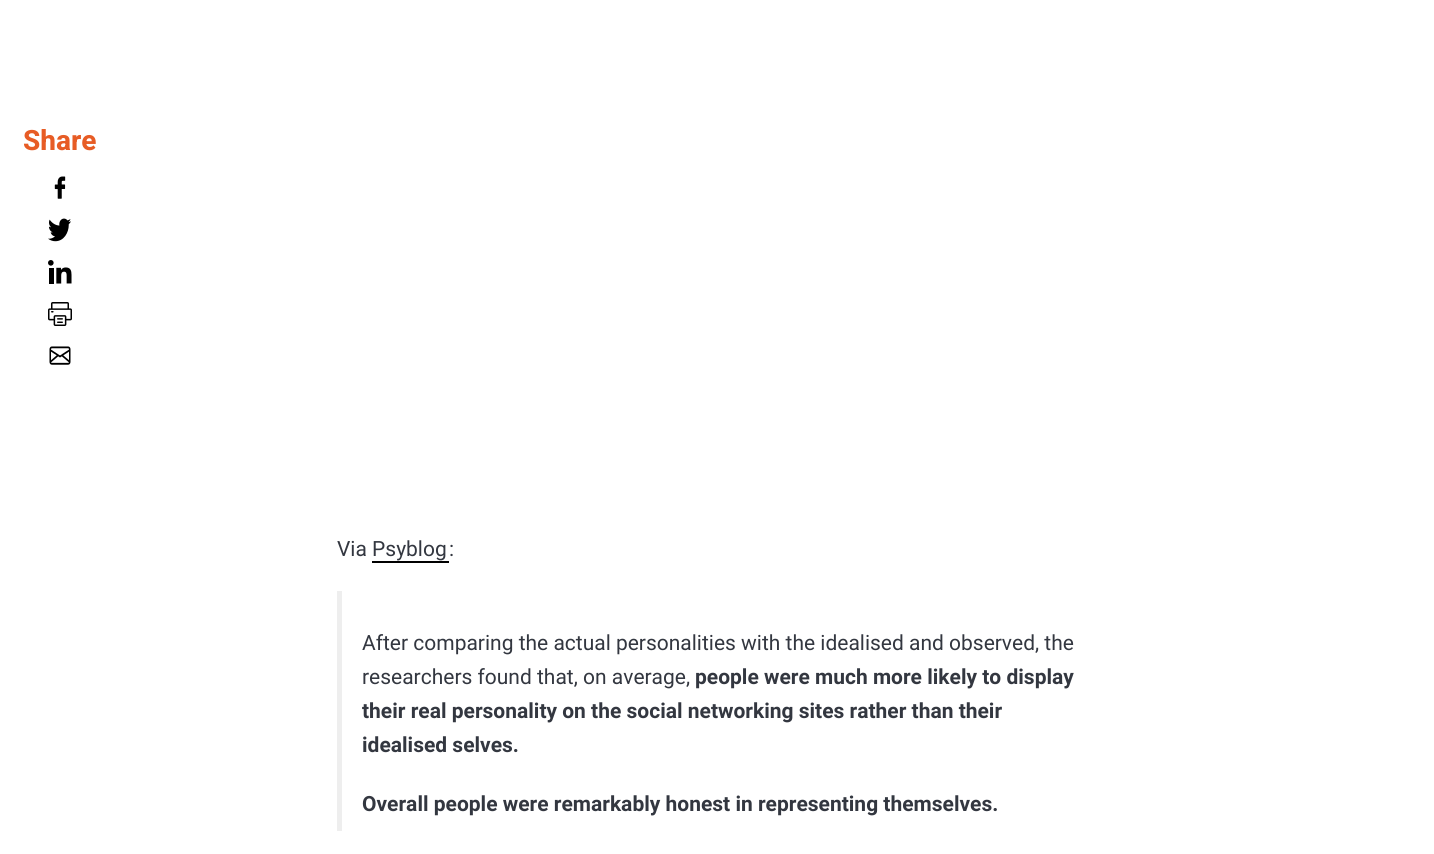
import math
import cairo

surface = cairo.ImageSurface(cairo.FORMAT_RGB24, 1434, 854)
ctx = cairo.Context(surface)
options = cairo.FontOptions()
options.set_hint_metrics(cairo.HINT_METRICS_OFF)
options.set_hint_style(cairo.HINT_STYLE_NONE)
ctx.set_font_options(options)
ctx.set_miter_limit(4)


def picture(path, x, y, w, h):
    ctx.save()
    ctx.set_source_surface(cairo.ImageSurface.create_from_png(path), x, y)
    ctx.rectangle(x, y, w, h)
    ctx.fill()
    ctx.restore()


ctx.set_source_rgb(1, 1, 1)
ctx.paint()
ctx.select_font_face("Heebo", cairo.FONT_SLANT_NORMAL, cairo.FONT_WEIGHT_BOLD)
ctx.set_font_size(28)
ctx.set_source_rgb(0.906, 0.361, 0.145)
ctx.move_to(23, 150)
ctx.show_text("Share")
picture("img1.png", 54, 176, 12, 23)
picture("img2.png", 48, 218, 23, 24)
picture("img3.png", 48, 260, 24, 24)
picture("img4.png", 48, 302, 24, 24)
picture("img5.png", 49, 346, 22, 19)
ctx.select_font_face("Roboto")
ctx.set_font_size(21)
ctx.set_source_rgb(0.2, 0.216, 0.251)
ctx.move_to(337, 556)
ctx.show_text("Via Psyblog")
ctx.move_to(449, 556)
ctx.show_text(":")
ctx.set_source_rgb(0, 0, 0)
ctx.rectangle(372, 561, 77, 2)
ctx.fill()
ctx.set_source_rgb(0.933, 0.933, 0.933)
ctx.rectangle(337, 591, 5, 240)
ctx.fill()
ctx.set_source_rgb(0.2, 0.216, 0.251)
ctx.move_to(362, 650)
ctx.show_text("After comparing the actual personalities with the idealised and observed, the")
ctx.move_to(362, 684)
ctx.show_text("researchers found that, on average,")
ctx.select_font_face("Roboto", cairo.FONT_SLANT_NORMAL, cairo.FONT_WEIGHT_BOLD)
ctx.move_to(695, 684)
ctx.show_text("people were much more likely to display")
ctx.move_to(362, 718)
ctx.show_text("their real personality on the social networking sites rather than their")
ctx.move_to(362, 752)
ctx.show_text("idealised selves.")
ctx.move_to(362, 811)
ctx.show_text("Overall people were remarkably honest in representing themselves.")
surface.write_to_png("page.png")
